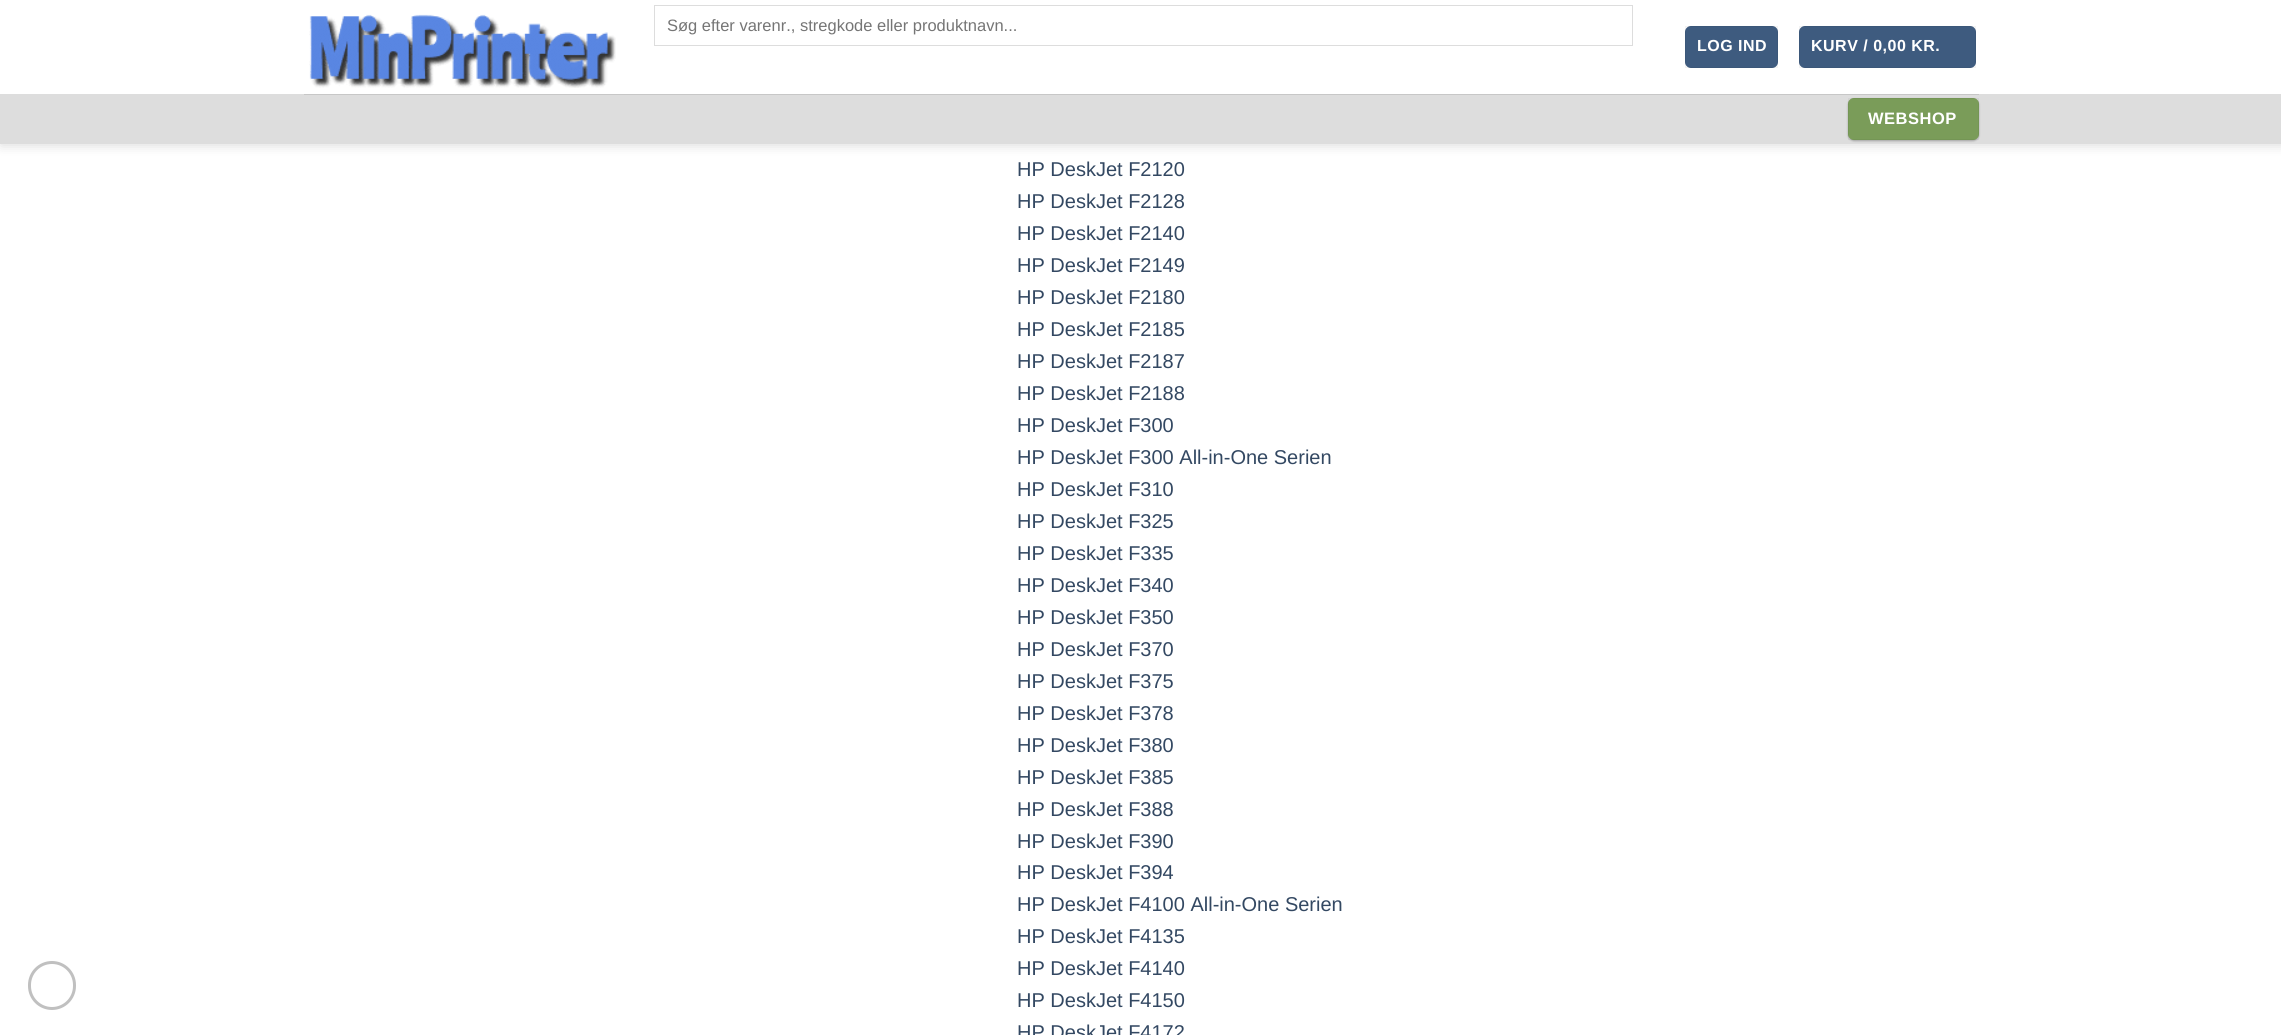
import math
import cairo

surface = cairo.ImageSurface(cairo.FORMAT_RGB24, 2281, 1035)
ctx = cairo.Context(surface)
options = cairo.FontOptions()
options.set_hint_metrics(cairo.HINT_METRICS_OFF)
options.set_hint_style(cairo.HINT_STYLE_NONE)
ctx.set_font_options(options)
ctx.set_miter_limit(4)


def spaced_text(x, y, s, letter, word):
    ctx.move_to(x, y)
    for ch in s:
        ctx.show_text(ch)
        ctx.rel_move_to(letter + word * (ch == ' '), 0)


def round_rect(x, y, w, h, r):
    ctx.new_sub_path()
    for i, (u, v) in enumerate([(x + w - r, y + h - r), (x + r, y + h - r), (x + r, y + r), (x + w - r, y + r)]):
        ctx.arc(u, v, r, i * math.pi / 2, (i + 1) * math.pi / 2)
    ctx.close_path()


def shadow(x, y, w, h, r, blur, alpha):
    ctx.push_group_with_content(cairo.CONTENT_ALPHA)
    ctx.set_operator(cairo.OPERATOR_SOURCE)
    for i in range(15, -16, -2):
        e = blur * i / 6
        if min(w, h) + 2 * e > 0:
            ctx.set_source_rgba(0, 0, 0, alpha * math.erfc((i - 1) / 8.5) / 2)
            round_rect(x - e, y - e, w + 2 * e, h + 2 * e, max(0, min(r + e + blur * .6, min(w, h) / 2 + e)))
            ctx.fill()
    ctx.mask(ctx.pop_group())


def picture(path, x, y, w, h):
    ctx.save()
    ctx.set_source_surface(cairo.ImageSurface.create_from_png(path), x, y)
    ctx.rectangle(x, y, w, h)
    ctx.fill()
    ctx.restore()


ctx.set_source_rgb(1, 1, 1)
ctx.paint()
ctx.set_source_rgb(0, 0, 0)
shadow(1, 1, 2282, 144, 0, 6, 0.15)
ctx.set_source_rgb(1, 1, 1)
ctx.rectangle(0, 0, 2281, 94)
ctx.fill()
picture("img1.png", 309, 14, 307, 74)
ctx.rectangle(654.5, 5.5, 978, 40)
ctx.set_source_rgb(0.867, 0.867, 0.867)
ctx.set_line_width(1)
ctx.stroke()
ctx.select_font_face("Liberation Sans")
ctx.set_font_size(16.5)
ctx.set_source_rgb(0.459, 0.459, 0.459)
ctx.move_to(667, 31)
ctx.show_text("Søg efter varenr., stregkode eller produktnavn...")
ctx.set_source_rgb(0.243, 0.357, 0.498)
round_rect(1685, 26, 93, 42, 6)
ctx.fill()
ctx.rectangle(1685.5, 26.5, 92, 41)
ctx.set_source_rgba(0, 0, 0, 0.05)
ctx.stroke()
ctx.select_font_face("Liberation Sans", cairo.FONT_SLANT_NORMAL, cairo.FONT_WEIGHT_BOLD)
ctx.set_font_size(16)
ctx.set_source_rgb(1, 1, 1)
spaced_text(1697, 51, "LOG IND", 0.5, 0)
ctx.set_source_rgb(0.243, 0.357, 0.498)
round_rect(1799, 26, 177, 42, 6)
ctx.fill()
ctx.rectangle(1799.5, 26.5, 176, 41)
ctx.set_source_rgba(0, 0, 0, 0.05)
ctx.stroke()
ctx.set_source_rgb(1, 1, 1)
spaced_text(1811, 51, "KURV / 0,00 KR.", 0.5, 0)
ctx.set_source_rgb(0.867, 0.867, 0.867)
ctx.rectangle(0, 94, 2281, 50)
ctx.fill()
ctx.set_source_rgb(0, 0, 0)
shadow(1850, 101, 126, 38, 4, 2, 0.12)
ctx.set_source_rgb(0.78, 0.78, 0.78)
ctx.rectangle(304, 94, 1675, 1)
ctx.fill()
ctx.set_source_rgb(0, 0, 0)
shadow(1848, 99, 131, 42, 6, 1, 0.24)
ctx.set_source_rgb(0.478, 0.612, 0.349)
round_rect(1848, 98, 131, 42, 6)
ctx.fill()
ctx.rectangle(1848.5, 98.5, 130, 41)
ctx.set_source_rgba(0, 0, 0, 0.05)
ctx.stroke()
ctx.set_font_size(16.5)
ctx.set_source_rgb(1, 1, 1)
spaced_text(1868, 124, "WEBSHOP", 0.5, 0)
round_rect(29.5, 962.5, 45, 46, 22.5)
ctx.set_source_rgb(0.753, 0.753, 0.753)
ctx.set_line_width(3)
ctx.stroke()
ctx.select_font_face("Liberation Sans")
ctx.set_font_size(20)
ctx.set_source_rgb(0.2, 0.282, 0.384)
ctx.move_to(1017, 176)
ctx.show_text("HP DeskJet F2120")
ctx.move_to(1017, 208)
ctx.show_text("HP DeskJet F2128")
ctx.move_to(1017, 240)
ctx.show_text("HP DeskJet F2140")
ctx.move_to(1017, 272)
ctx.show_text("HP DeskJet F2149")
ctx.move_to(1017, 304)
ctx.show_text("HP DeskJet F2180")
ctx.move_to(1017, 336)
ctx.show_text("HP DeskJet F2185")
ctx.move_to(1017, 368)
ctx.show_text("HP DeskJet F2187")
ctx.move_to(1017, 400)
ctx.show_text("HP DeskJet F2188")
ctx.move_to(1017, 432)
ctx.show_text("HP DeskJet F300")
ctx.move_to(1017, 464)
ctx.show_text("HP DeskJet F300 All-in-One Serien")
ctx.move_to(1017, 496)
ctx.show_text("HP DeskJet F310")
ctx.move_to(1017, 528)
ctx.show_text("HP DeskJet F325")
ctx.move_to(1017, 560)
ctx.show_text("HP DeskJet F335")
ctx.move_to(1017, 592)
ctx.show_text("HP DeskJet F340")
ctx.move_to(1017, 624)
ctx.show_text("HP DeskJet F350")
ctx.move_to(1017, 656)
ctx.show_text("HP DeskJet F370")
ctx.move_to(1017, 688)
ctx.show_text("HP DeskJet F375")
ctx.move_to(1017, 720)
ctx.show_text("HP DeskJet F378")
ctx.move_to(1017, 752)
ctx.show_text("HP DeskJet F380")
ctx.move_to(1017, 784)
ctx.show_text("HP DeskJet F385")
ctx.move_to(1017, 816)
ctx.show_text("HP DeskJet F388")
ctx.move_to(1017, 848)
ctx.show_text("HP DeskJet F390")
ctx.move_to(1017, 879)
ctx.show_text("HP DeskJet F394")
ctx.move_to(1017, 911)
ctx.show_text("HP DeskJet F4100 All-in-One Serien")
ctx.move_to(1017, 943)
ctx.show_text("HP DeskJet F4135")
ctx.move_to(1017, 975)
ctx.show_text("HP DeskJet F4140")
ctx.move_to(1017, 1007)
ctx.show_text("HP DeskJet F4150")
ctx.move_to(1017, 1039)
ctx.show_text("HP DeskJet F4172")
surface.write_to_png("page.png")
